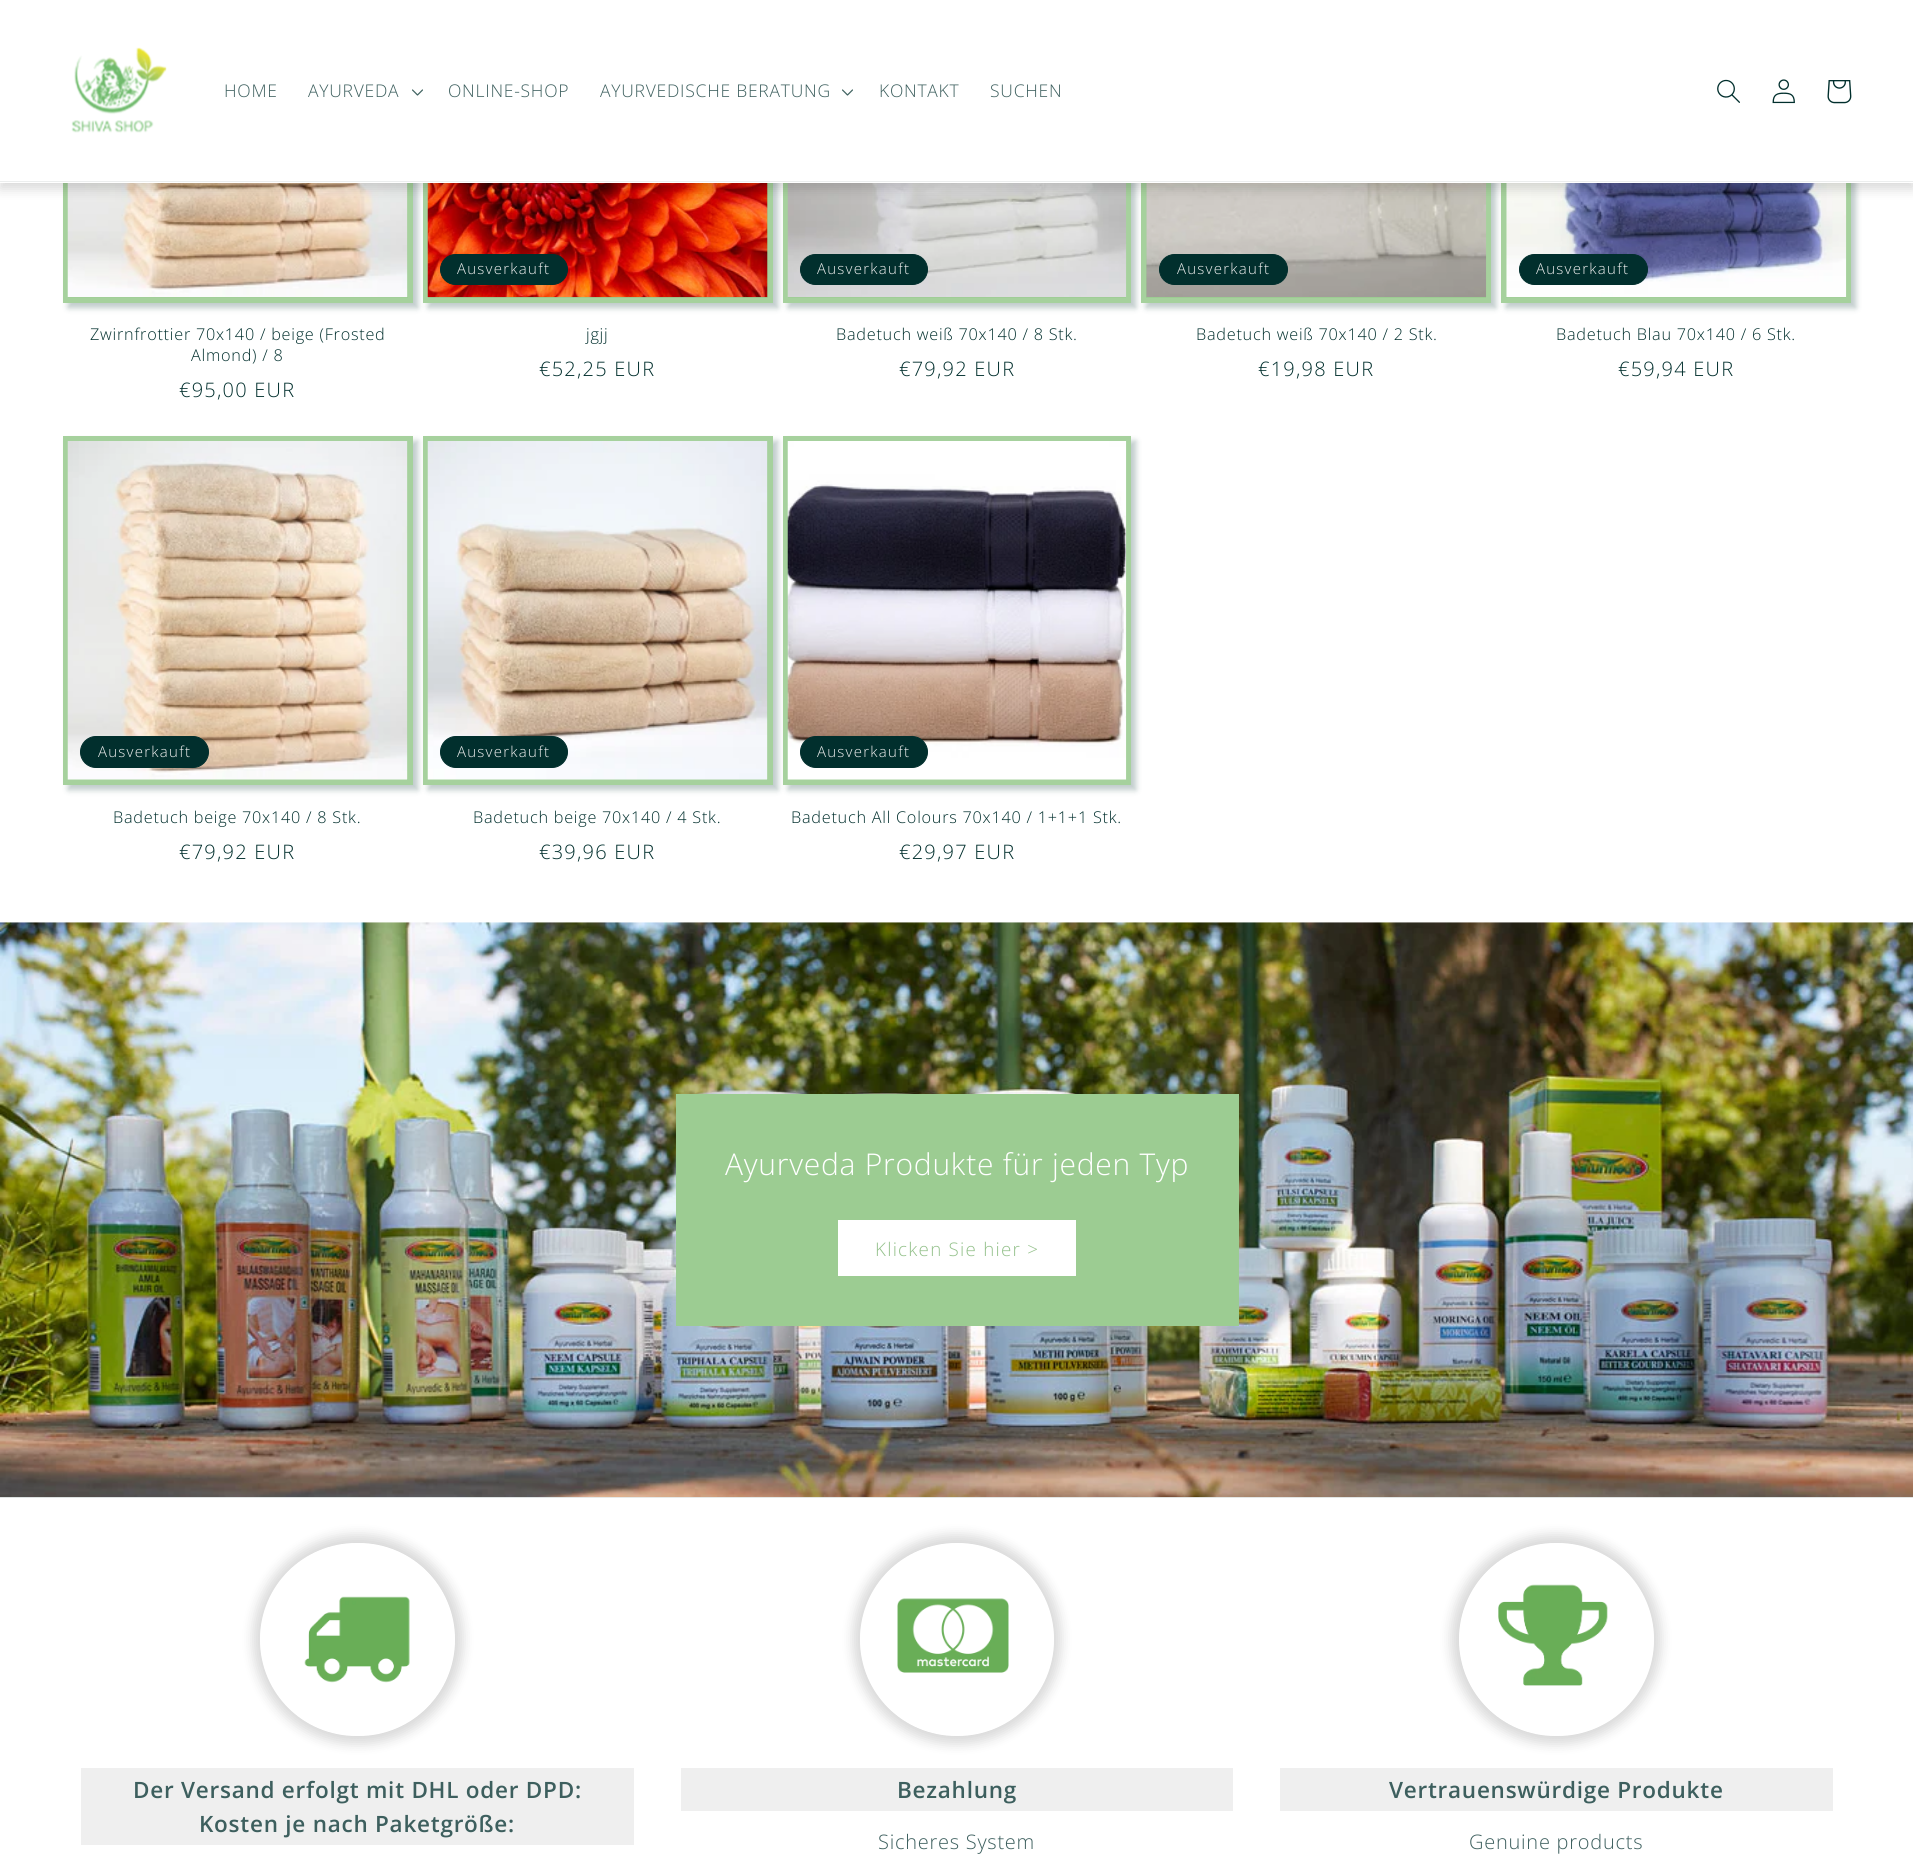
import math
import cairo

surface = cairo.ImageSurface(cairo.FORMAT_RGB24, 1913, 1874)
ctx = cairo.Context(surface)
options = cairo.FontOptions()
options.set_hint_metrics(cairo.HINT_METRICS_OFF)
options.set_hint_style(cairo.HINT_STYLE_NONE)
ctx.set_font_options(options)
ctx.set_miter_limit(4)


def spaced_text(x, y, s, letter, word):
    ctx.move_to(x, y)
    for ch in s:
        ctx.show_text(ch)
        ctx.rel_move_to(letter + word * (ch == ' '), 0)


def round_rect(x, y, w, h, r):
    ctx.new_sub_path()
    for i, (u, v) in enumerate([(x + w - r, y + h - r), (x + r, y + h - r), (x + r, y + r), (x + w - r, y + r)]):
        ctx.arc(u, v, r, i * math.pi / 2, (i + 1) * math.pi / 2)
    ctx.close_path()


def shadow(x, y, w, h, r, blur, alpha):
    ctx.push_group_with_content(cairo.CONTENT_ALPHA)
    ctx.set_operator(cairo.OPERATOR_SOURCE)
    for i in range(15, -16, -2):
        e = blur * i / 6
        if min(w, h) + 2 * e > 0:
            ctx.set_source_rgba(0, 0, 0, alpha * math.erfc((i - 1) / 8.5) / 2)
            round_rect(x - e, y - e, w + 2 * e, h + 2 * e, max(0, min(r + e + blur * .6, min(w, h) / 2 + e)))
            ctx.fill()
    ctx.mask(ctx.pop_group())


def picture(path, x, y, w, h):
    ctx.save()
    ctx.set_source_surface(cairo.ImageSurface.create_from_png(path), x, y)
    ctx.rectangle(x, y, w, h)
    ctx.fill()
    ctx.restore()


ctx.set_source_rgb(1, 1, 1)
ctx.paint()
ctx.set_source_rgb(0.004, 0.184, 0.176)
shadow(68, -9, 350, 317, 0, 3, 0.25)
ctx.set_source_rgb(0.612, 0.8, 0.573)
ctx.rectangle(68, 183, 340, 115)
ctx.fill()
ctx.rectangle(65.5, -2.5, 345, 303)
ctx.set_source_rgb(0.651, 0.82, 0.616)
ctx.set_line_width(5)
ctx.stroke()
picture("img6.png", 67, 183, 341, 115)
ctx.set_source_rgb(0.004, 0.184, 0.176)
shadow(428, -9, 350, 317, 0, 3, 0.25)
ctx.set_source_rgb(0.612, 0.8, 0.573)
ctx.rectangle(428, 183, 340, 115)
ctx.fill()
ctx.rectangle(425.5, -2.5, 345, 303)
ctx.set_source_rgb(0.651, 0.82, 0.616)
ctx.stroke()
picture("img7.png", 427, 183, 341, 115)
ctx.set_source_rgb(0.004, 0.184, 0.176)
shadow(788, -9, 348, 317, 0, 3, 0.25)
ctx.set_source_rgb(0.612, 0.8, 0.573)
ctx.rectangle(788, 297, 338, 1)
ctx.fill()
ctx.rectangle(785.5, -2.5, 343, 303)
ctx.set_source_rgb(0.651, 0.82, 0.616)
ctx.stroke()
picture("img8.png", 787, 183, 340, 115)
ctx.set_source_rgb(0.004, 0.184, 0.176)
shadow(1146, -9, 350, 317, 0, 3, 0.25)
ctx.set_source_rgb(0.612, 0.8, 0.573)
ctx.rectangle(1146, 183, 340, 115)
ctx.fill()
ctx.rectangle(1143.5, -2.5, 345, 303)
ctx.set_source_rgb(0.651, 0.82, 0.616)
ctx.stroke()
picture("img9.png", 1146, 183, 341, 114)
ctx.set_source_rgb(0.004, 0.184, 0.176)
shadow(1506, -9, 350, 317, 0, 3, 0.25)
ctx.set_source_rgb(0.612, 0.8, 0.573)
ctx.rectangle(1506, 183, 340, 115)
ctx.fill()
ctx.rectangle(1503.5, -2.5, 345, 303)
ctx.set_source_rgb(0.651, 0.82, 0.616)
ctx.stroke()
picture("img10.png", 1506, 183, 341, 115)
ctx.set_source_rgb(0, 0, 0)
shadow(0, 6, 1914, 183, 0, 6, 0.15)
ctx.set_source_rgb(1, 1, 1)
ctx.rectangle(0, 0, 1913, 183)
ctx.fill()
ctx.set_source_rgb(0.922, 0.933, 0.933)
ctx.rectangle(0, 181, 1913, 1)
ctx.fill()
picture("img1.png", 71, 47, 96, 86)
ctx.select_font_face("Open Sans Light")
ctx.set_font_size(17.5)
ctx.set_source_rgb(0.239, 0.373, 0.369)
spaced_text(224, 97, "HOME", 0.75, 0)
spaced_text(308, 97, "AYURVEDA", 0.75, 0)
picture("img2.png", 412, 89, 11, 7)
spaced_text(448, 97, "ONLINE-SHOP", 0.75, 0)
spaced_text(600, 97, "AYURVEDISCHE BERATUNG", 0.75, 0)
picture("img2.png", 842, 89, 11, 7)
spaced_text(879, 97, "KONTAKT", 0.75, 0)
spaced_text(990, 97, "SUCHEN", 0.75, 0)
picture("img3.png", 1717, 79, 23, 24)
picture("img4.png", 1772, 79, 23, 25)
picture("img5.png", 1827, 80, 25, 24)
ctx.set_font_size(16.25)
ctx.set_source_rgb(0.004, 0.184, 0.176)
spaced_text(90, 340, "Zwirnfrottier 70x140 / beige (Frosted", 0.75, 0)
spaced_text(191, 361, "Almond) / 8", 0.75, 0)
ctx.set_font_size(20)
spaced_text(179, 397, "€95,00 EUR", 1.25, 0)
round_rect(440.5, 254.5, 127, 30, 15)
ctx.fill_preserve()
ctx.set_line_width(1)
ctx.stroke()
ctx.set_font_size(15)
ctx.set_source_rgb(0.937, 0.937, 0.937)
spaced_text(457, 274, "Ausverkauft", 1.25, 0)
ctx.set_font_size(16.25)
ctx.set_source_rgb(0.004, 0.184, 0.176)
spaced_text(586, 340, "jgjj", 0.75, 0)
ctx.set_font_size(20)
spaced_text(539, 376, "€52,25 EUR", 1.25, 0)
round_rect(800.5, 254.5, 127, 30, 15)
ctx.fill_preserve()
ctx.stroke()
ctx.set_font_size(15)
ctx.set_source_rgb(0.937, 0.937, 0.937)
spaced_text(817, 274, "Ausverkauft", 1.25, 0)
ctx.set_font_size(16.25)
ctx.set_source_rgb(0.004, 0.184, 0.176)
spaced_text(836, 340, "Badetuch weiß 70x140 / 8 Stk.", 0.75, 0)
ctx.set_font_size(20)
spaced_text(899, 376, "€79,92 EUR", 1.25, 0)
round_rect(1159.5, 254.5, 128, 30, 15)
ctx.fill_preserve()
ctx.stroke()
ctx.set_font_size(15)
ctx.set_source_rgb(0.937, 0.937, 0.937)
spaced_text(1177, 274, "Ausverkauft", 1.25, 0)
ctx.set_font_size(16.25)
ctx.set_source_rgb(0.004, 0.184, 0.176)
spaced_text(1196, 340, "Badetuch weiß 70x140 / 2 Stk.", 0.75, 0)
ctx.set_font_size(20)
spaced_text(1258, 376, "€19,98 EUR", 1.25, 0)
round_rect(1519.5, 254.5, 128, 30, 15)
ctx.fill_preserve()
ctx.stroke()
ctx.set_font_size(15)
ctx.set_source_rgb(0.937, 0.937, 0.937)
spaced_text(1536, 274, "Ausverkauft", 1.25, 0)
ctx.set_font_size(16.25)
ctx.set_source_rgb(0.004, 0.184, 0.176)
spaced_text(1556, 340, "Badetuch Blau 70x140 / 6 Stk.", 0.75, 0)
ctx.set_font_size(20)
spaced_text(1618, 376, "€59,94 EUR", 1.25, 0)
ctx.set_source_rgb(0.004, 0.184, 0.176)
shadow(68, 441, 350, 349, 0, 3, 0.25)
ctx.set_source_rgb(0.612, 0.8, 0.573)
ctx.rectangle(65.5, 438.5, 345, 344)
ctx.fill_preserve()
ctx.set_source_rgb(0.651, 0.82, 0.616)
ctx.set_line_width(5)
ctx.stroke()
picture("img11.png", 67, 441, 341, 339)
ctx.set_source_rgb(0.004, 0.184, 0.176)
round_rect(80.5, 736.5, 128, 31, 15.5)
ctx.fill_preserve()
ctx.set_line_width(1)
ctx.stroke()
ctx.set_font_size(15)
ctx.set_source_rgb(0.937, 0.937, 0.937)
spaced_text(98, 757, "Ausverkauft", 1.25, 0)
ctx.set_font_size(16.25)
ctx.set_source_rgb(0.004, 0.184, 0.176)
spaced_text(113, 823, "Badetuch beige 70x140 / 8 Stk.", 0.75, 0)
ctx.set_font_size(20)
spaced_text(179, 859, "€79,92 EUR", 1.25, 0)
ctx.set_source_rgb(0.004, 0.184, 0.176)
shadow(428, 441, 350, 349, 0, 3, 0.25)
ctx.set_source_rgb(0.612, 0.8, 0.573)
ctx.rectangle(425.5, 438.5, 345, 344)
ctx.fill_preserve()
ctx.set_source_rgb(0.651, 0.82, 0.616)
ctx.set_line_width(5)
ctx.stroke()
picture("img12.png", 427, 441, 341, 339)
ctx.set_source_rgb(0.004, 0.184, 0.176)
round_rect(440.5, 736.5, 127, 31, 15.5)
ctx.fill_preserve()
ctx.set_line_width(1)
ctx.stroke()
ctx.set_font_size(15)
ctx.set_source_rgb(0.937, 0.937, 0.937)
spaced_text(457, 757, "Ausverkauft", 1.25, 0)
ctx.set_font_size(16.25)
ctx.set_source_rgb(0.004, 0.184, 0.176)
spaced_text(473, 823, "Badetuch beige 70x140 / 4 Stk.", 0.75, 0)
ctx.set_font_size(20)
spaced_text(539, 859, "€39,96 EUR", 1.25, 0)
ctx.set_source_rgb(0.004, 0.184, 0.176)
shadow(788, 441, 348, 349, 0, 3, 0.25)
ctx.set_source_rgb(0.612, 0.8, 0.573)
ctx.rectangle(788, 779, 338, 1)
ctx.fill()
ctx.rectangle(785.5, 438.5, 343, 344)
ctx.set_source_rgb(0.651, 0.82, 0.616)
ctx.set_line_width(5)
ctx.stroke()
picture("img13.png", 787, 441, 340, 339)
ctx.set_source_rgb(0.004, 0.184, 0.176)
round_rect(800.5, 736.5, 127, 31, 15.5)
ctx.fill_preserve()
ctx.set_line_width(1)
ctx.stroke()
ctx.set_font_size(15)
ctx.set_source_rgb(0.937, 0.937, 0.937)
spaced_text(817, 757, "Ausverkauft", 1.25, 0)
ctx.set_font_size(16.25)
ctx.set_source_rgb(0.004, 0.184, 0.176)
spaced_text(791, 823, "Badetuch All Colours 70x140 / 1+1+1 Stk.", 0.75, 0)
ctx.set_font_size(20)
spaced_text(899, 859, "€29,97 EUR", 1.25, 0)
ctx.set_source_rgb(0.902, 0.922, 0.922)
ctx.rectangle(0, 1497, 1913, 1)
ctx.fill()
picture("img14.png", 0, 922, 1913, 576)
ctx.set_source_rgb(0.612, 0.8, 0.573)
ctx.rectangle(676, 1094, 563, 232)
ctx.fill()
ctx.set_font_size(30)
ctx.set_source_rgb(1, 1, 1)
spaced_text(725, 1175, "Ayurveda Produkte für jeden Typ", 0.75, 0)
ctx.rectangle(838, 1220, 238, 56)
ctx.fill()
ctx.set_font_size(18.75)
ctx.set_source_rgb(0.58, 0.757, 0.545)
spaced_text(875, 1256, "Klicken Sie hier >", 1.25, 0)
ctx.save()
ctx.set_fill_rule(cairo.FILL_RULE_EVEN_ODD)
ctx.new_path()
ctx.move_to(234, 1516)
ctx.line_to(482, 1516)
ctx.line_to(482, 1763)
ctx.line_to(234, 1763)
ctx.close_path()
ctx.move_to(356.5, 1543)
ctx.line_to(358.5, 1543)
ctx.curve_to(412, 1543, 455, 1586, 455, 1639.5)
ctx.curve_to(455, 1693, 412, 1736, 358.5, 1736)
ctx.line_to(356.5, 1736)
ctx.curve_to(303, 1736, 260, 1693, 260, 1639.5)
ctx.curve_to(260, 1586, 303, 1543, 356.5, 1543)
ctx.close_path()
ctx.clip()
ctx.set_source_rgb(0, 0, 0)
shadow(253, 1535, 210, 209, 104.5, 6, 0.15)
ctx.restore()
picture("img15.png", 304, 1596, 106, 87)
ctx.set_source_rgb(0.937, 0.937, 0.937)
ctx.rectangle(81, 1768, 553, 77)
ctx.fill()
ctx.select_font_face("Open Sans SemiBold")
ctx.set_font_size(22.5)
ctx.set_source_rgb(0.239, 0.373, 0.369)
spaced_text(133, 1798, "Der Versand erfolgt mit DHL oder DPD:", 0.75, 0)
spaced_text(199, 1832, "Kosten je nach Paketgröße:", 0.75, 0)
ctx.save()
ctx.set_fill_rule(cairo.FILL_RULE_EVEN_ODD)
ctx.new_path()
ctx.move_to(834, 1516)
ctx.line_to(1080, 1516)
ctx.line_to(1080, 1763)
ctx.line_to(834, 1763)
ctx.close_path()
ctx.move_to(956.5, 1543)
ctx.line_to(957.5, 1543)
ctx.curve_to(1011, 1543, 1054, 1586, 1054, 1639.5)
ctx.curve_to(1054, 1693, 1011, 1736, 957.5, 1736)
ctx.line_to(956.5, 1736)
ctx.curve_to(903, 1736, 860, 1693, 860, 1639.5)
ctx.curve_to(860, 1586, 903, 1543, 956.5, 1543)
ctx.close_path()
ctx.clip()
ctx.set_source_rgb(0, 0, 0)
shadow(853, 1535, 208, 209, 104, 6, 0.15)
ctx.restore()
picture("img16.png", 897, 1598, 112, 75)
ctx.set_source_rgb(0.937, 0.937, 0.937)
ctx.rectangle(681, 1768, 552, 43)
ctx.fill()
ctx.set_source_rgb(0.239, 0.373, 0.369)
spaced_text(897, 1798, "Bezahlung", 0.75, 0)
ctx.select_font_face("Open Sans Light")
ctx.set_font_size(20)
spaced_text(878, 1849, "Sicheres System", 0.75, 0)
ctx.save()
ctx.set_fill_rule(cairo.FILL_RULE_EVEN_ODD)
ctx.new_path()
ctx.move_to(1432, 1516)
ctx.line_to(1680, 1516)
ctx.line_to(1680, 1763)
ctx.line_to(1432, 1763)
ctx.close_path()
ctx.move_to(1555.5, 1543)
ctx.line_to(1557.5, 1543)
ctx.curve_to(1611, 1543, 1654, 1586, 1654, 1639.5)
ctx.curve_to(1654, 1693, 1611, 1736, 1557.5, 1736)
ctx.line_to(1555.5, 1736)
ctx.curve_to(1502, 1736, 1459, 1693, 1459, 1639.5)
ctx.curve_to(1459, 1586, 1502, 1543, 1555.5, 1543)
ctx.close_path()
ctx.clip()
ctx.set_source_rgb(0, 0, 0)
shadow(1451, 1535, 210, 209, 104.5, 6, 0.15)
ctx.restore()
picture("img17.png", 1498, 1584, 110, 102)
ctx.set_source_rgb(0.937, 0.937, 0.937)
ctx.rectangle(1280, 1768, 553, 43)
ctx.fill()
ctx.select_font_face("Open Sans SemiBold")
ctx.set_font_size(22.5)
ctx.set_source_rgb(0.239, 0.373, 0.369)
spaced_text(1389, 1798, "Vertrauenswürdige Produkte", 0.75, 0)
ctx.select_font_face("Open Sans Light")
ctx.set_font_size(20)
spaced_text(1469, 1849, "Genuine products", 0.75, 0)
surface.write_to_png("page.png")
